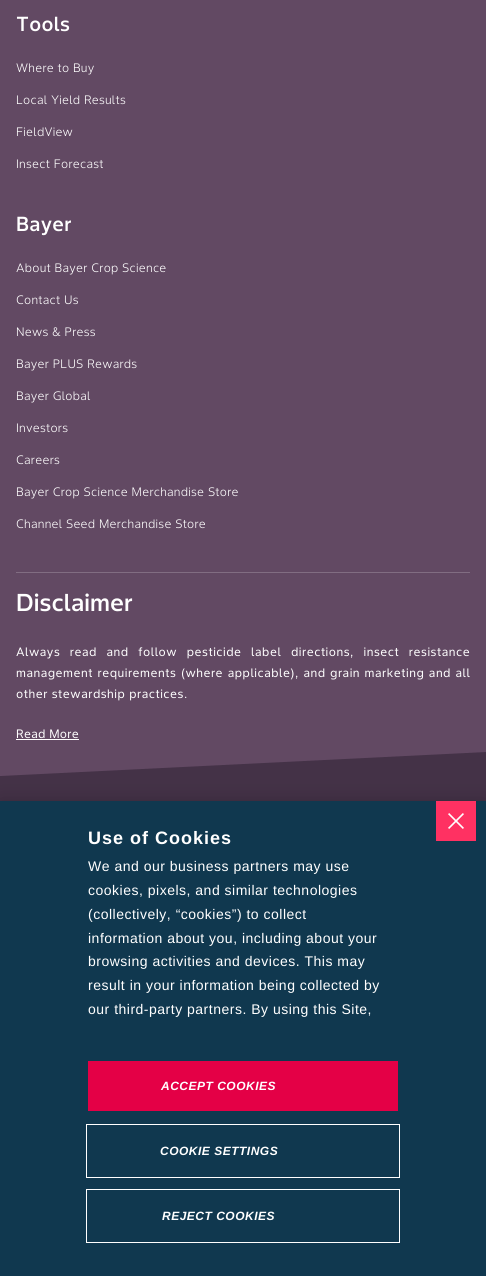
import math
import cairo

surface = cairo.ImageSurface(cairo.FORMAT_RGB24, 486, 1276)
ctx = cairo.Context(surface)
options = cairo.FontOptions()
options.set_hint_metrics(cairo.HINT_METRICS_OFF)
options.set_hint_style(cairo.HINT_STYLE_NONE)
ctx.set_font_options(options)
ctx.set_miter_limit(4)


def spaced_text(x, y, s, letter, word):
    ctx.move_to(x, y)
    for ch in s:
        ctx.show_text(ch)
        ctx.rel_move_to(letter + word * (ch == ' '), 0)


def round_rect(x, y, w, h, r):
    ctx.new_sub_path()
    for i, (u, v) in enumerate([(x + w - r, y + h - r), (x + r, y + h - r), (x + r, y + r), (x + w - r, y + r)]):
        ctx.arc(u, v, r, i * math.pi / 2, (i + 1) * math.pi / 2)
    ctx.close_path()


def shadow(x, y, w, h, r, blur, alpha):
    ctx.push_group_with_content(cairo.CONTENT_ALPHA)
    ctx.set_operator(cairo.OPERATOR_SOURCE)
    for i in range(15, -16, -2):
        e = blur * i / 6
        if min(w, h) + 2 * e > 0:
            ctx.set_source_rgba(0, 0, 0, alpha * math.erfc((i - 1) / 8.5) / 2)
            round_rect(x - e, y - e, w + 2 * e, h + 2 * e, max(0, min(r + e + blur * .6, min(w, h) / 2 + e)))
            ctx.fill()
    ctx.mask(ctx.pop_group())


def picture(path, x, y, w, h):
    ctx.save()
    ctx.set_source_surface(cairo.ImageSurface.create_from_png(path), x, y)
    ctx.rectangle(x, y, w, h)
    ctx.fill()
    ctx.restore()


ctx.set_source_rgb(0.384, 0.286, 0.388)
ctx.paint()
ctx.select_font_face("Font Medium")
ctx.set_font_size(20)
ctx.set_source_rgb(1, 1, 1)
spaced_text(16, 31, "Tools", 0.25, 0)
ctx.select_font_face("Font Light")
ctx.set_font_size(12)
spaced_text(16, 72, "Where to Buy", 0.25, 0)
spaced_text(16, 104, "Local Yield Results", 0.25, 0)
spaced_text(16, 136, "FieldView", 0.25, 0)
spaced_text(16, 168, "Insect Forecast", 0.25, 0)
ctx.select_font_face("Font Medium")
ctx.set_font_size(20)
spaced_text(16, 231, "Bayer", 0.25, 0)
ctx.select_font_face("Font Light")
ctx.set_font_size(12)
spaced_text(16, 272, "About Bayer Crop Science", 0.25, 0)
spaced_text(16, 304, "Contact Us", 0.25, 0)
spaced_text(16, 336, "News & Press", 0.25, 0)
spaced_text(16, 368, "Bayer PLUS Rewards", 0.25, 0)
spaced_text(16, 400, "Bayer Global", 0.25, 0)
spaced_text(16, 432, "Investors", 0.25, 0)
spaced_text(16, 464, "Careers", 0.25, 0)
spaced_text(16, 496, "Bayer Crop Science Merchandise Store", 0.25, 0)
spaced_text(16, 528, "Channel Seed Merchandise Store", 0.25, 0)
ctx.set_source_rgb(0.506, 0.427, 0.51)
ctx.rectangle(16, 572, 454, 1)
ctx.fill()
ctx.select_font_face("Font Medium")
ctx.set_font_size(24)
ctx.set_source_rgb(1, 1, 1)
ctx.move_to(16, 611)
ctx.show_text("Disclaimer")
ctx.select_font_face("Font")
ctx.set_font_size(12)
spaced_text(16, 656, "Always read and follow pesticide label directions, insect resistance", 0.5, 5.75)
spaced_text(16, 677, "management requirements (where applicable), and grain marketing and all", 0.5, 0.75)
spaced_text(16, 698, "other stewardship practices.", 0.5, 0)
spaced_text(16, 738, "Read More", 0.25, 0)
ctx.rectangle(16, 739, 63, 1)
ctx.fill()
ctx.set_source_rgb(0.267, 0.196, 0.278)
ctx.rectangle(0, 777, 486, 24)
ctx.fill()
ctx.new_path()
ctx.move_to(0, 776)
ctx.line_to(0, 777)
ctx.line_to(486, 777)
ctx.line_to(486, 752)
ctx.close_path()
ctx.fill()
ctx.set_source_rgb(0, 0, 0)
shadow(0, 801, 486, 475, 0, 9, 0.2)
ctx.set_source_rgb(0.063, 0.22, 0.31)
ctx.rectangle(0, 801, 486, 475)
ctx.fill()
ctx.set_source_rgb(1, 0.192, 0.384)
ctx.rectangle(436, 801, 40, 40)
ctx.fill()
picture("img1.png", 448, 813, 16, 16)
ctx.select_font_face("Liberation Sans", cairo.FONT_SLANT_NORMAL, cairo.FONT_WEIGHT_BOLD)
ctx.set_font_size(18)
ctx.set_source_rgb(1, 1, 1)
spaced_text(88, 844, "Use of Cookies", 1, 0)
ctx.select_font_face("Liberation Sans")
ctx.set_font_size(14)
spaced_text(88, 871, "We and our business partners may use", 0.5, 0)
spaced_text(88, 895, "cookies, pixels, and similar technologies", 0.5, 0)
spaced_text(88, 919, "(collectively, “cookies”) to collect", 0.5, 0)
spaced_text(88, 943, "information about you, including about your", 0.5, 0)
spaced_text(88, 966, "browsing activities and devices. This may", 0.5, 0)
spaced_text(88, 990, "result in your information being collected by", 0.5, 0)
spaced_text(88, 1014, "our third-party partners. By using this Site,", 0.5, 0)
ctx.set_source_rgb(0.894, 0, 0.275)
ctx.rectangle(88, 1061, 310, 50)
ctx.fill()
ctx.select_font_face("Liberation Sans", cairo.FONT_SLANT_ITALIC, cairo.FONT_WEIGHT_BOLD)
ctx.set_font_size(12)
ctx.set_source_rgb(1, 1, 1)
spaced_text(161, 1090, "ACCEPT COOKIES", 0.5, 0)
ctx.rectangle(86.5, 1124.5, 313, 53)
ctx.set_line_width(1)
ctx.stroke()
spaced_text(160, 1155, "COOKIE SETTINGS", 0.5, 0)
ctx.rectangle(86.5, 1189.5, 313, 53)
ctx.stroke()
spaced_text(162, 1220, "REJECT COOKIES", 0.5, 0)
surface.write_to_png("page.png")
